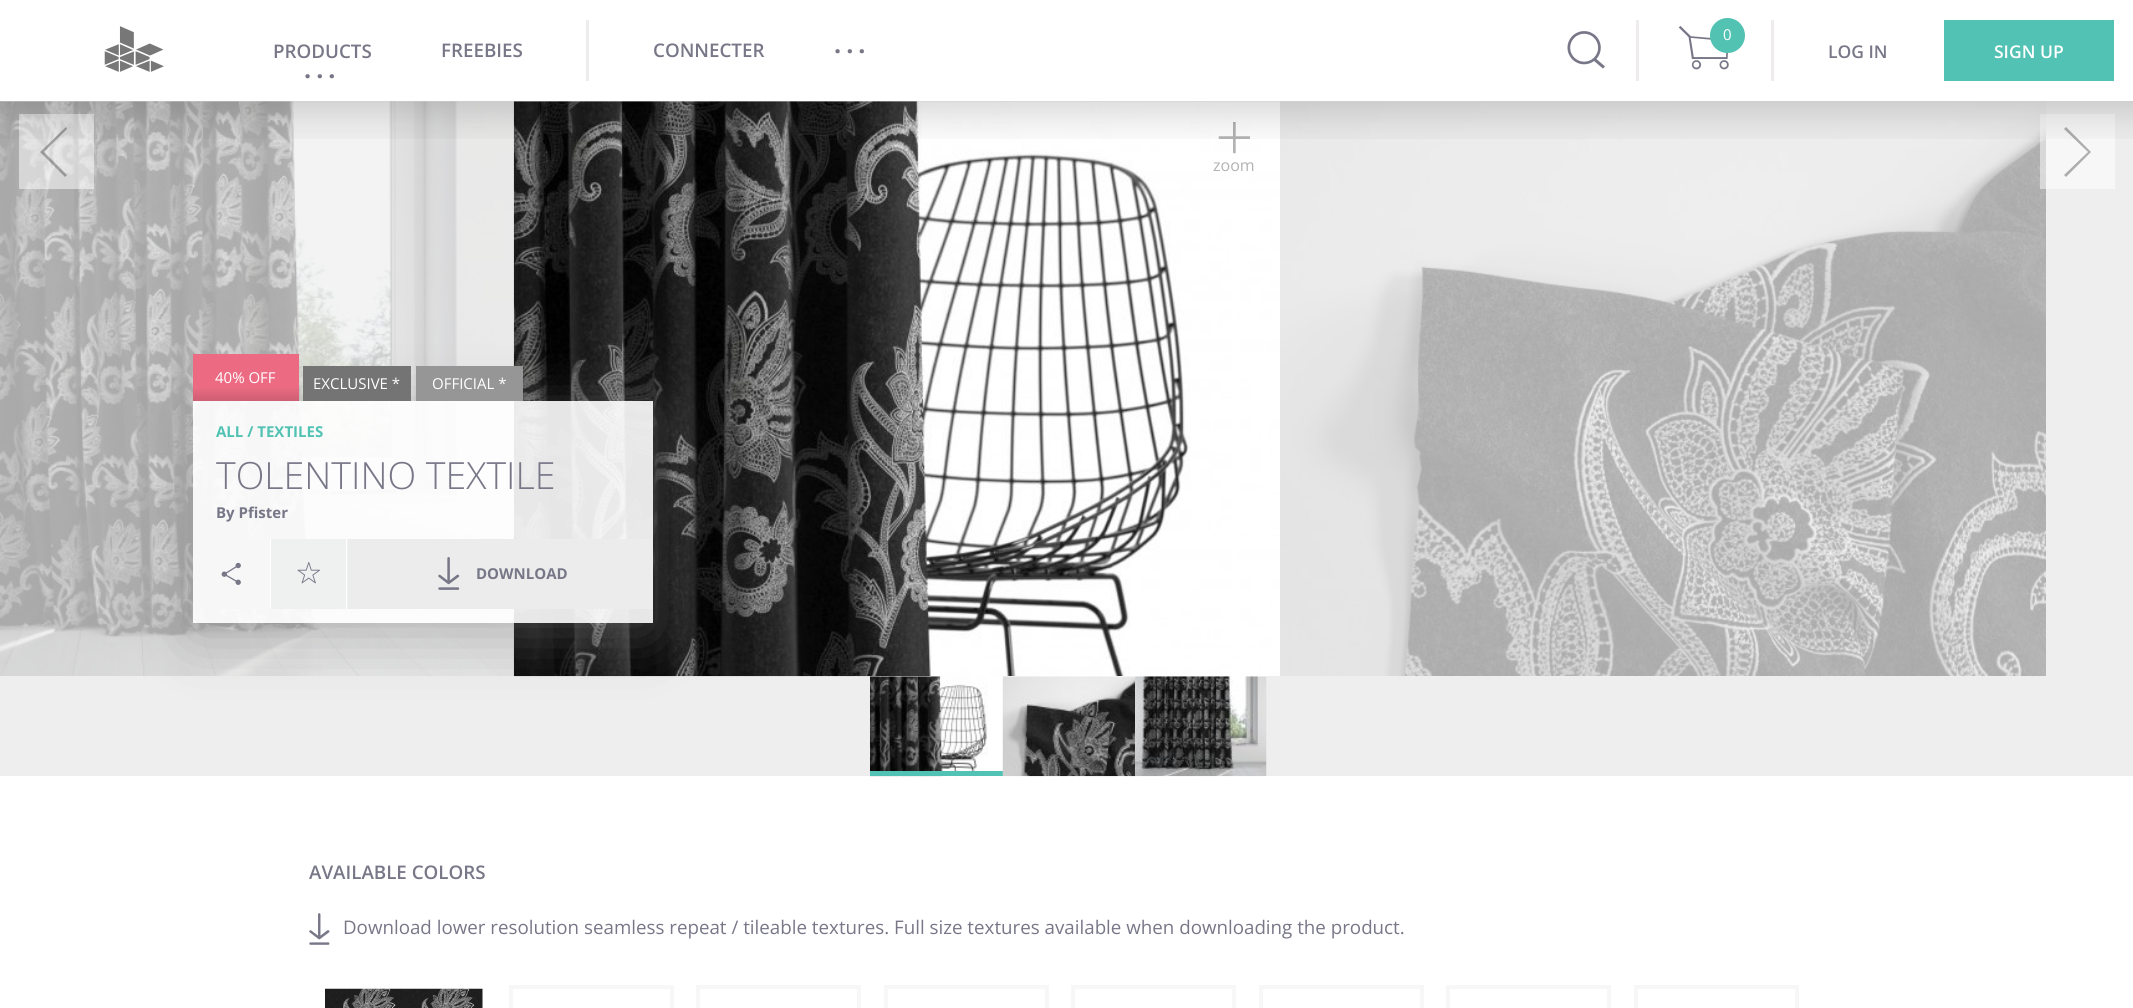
import math
import cairo

surface = cairo.ImageSurface(cairo.FORMAT_RGB24, 2133, 1008)
ctx = cairo.Context(surface)
options = cairo.FontOptions()
options.set_hint_metrics(cairo.HINT_METRICS_OFF)
options.set_hint_style(cairo.HINT_STYLE_NONE)
ctx.set_font_options(options)
ctx.set_miter_limit(4)


def spaced_text(x, y, s, letter, word):
    ctx.move_to(x, y)
    for ch in s:
        ctx.show_text(ch)
        ctx.rel_move_to(letter + word * (ch == ' '), 0)


def round_rect(x, y, w, h, r):
    ctx.new_sub_path()
    for i, (u, v) in enumerate([(x + w - r, y + h - r), (x + r, y + h - r), (x + r, y + r), (x + w - r, y + r)]):
        ctx.arc(u, v, r, i * math.pi / 2, (i + 1) * math.pi / 2)
    ctx.close_path()


def shadow(x, y, w, h, r, blur, alpha):
    ctx.push_group_with_content(cairo.CONTENT_ALPHA)
    ctx.set_operator(cairo.OPERATOR_SOURCE)
    for i in range(15, -16, -2):
        e = blur * i / 6
        if min(w, h) + 2 * e > 0:
            ctx.set_source_rgba(0, 0, 0, alpha * math.erfc((i - 1) / 8.5) / 2)
            round_rect(x - e, y - e, w + 2 * e, h + 2 * e, max(0, min(r + e + blur * .6, min(w, h) / 2 + e)))
            ctx.fill()
    ctx.mask(ctx.pop_group())


def picture(path, x, y, w, h):
    ctx.save()
    ctx.set_source_surface(cairo.ImageSurface.create_from_png(path), x, y)
    ctx.rectangle(x, y, w, h)
    ctx.fill()
    ctx.restore()


ctx.set_source_rgb(1, 1, 1)
ctx.paint()
picture("img1.png", 104, 26, 60, 46)
ctx.select_font_face("Open Sans SemiBold")
ctx.set_font_size(18.75)
ctx.set_source_rgb(0.467, 0.467, 0.533)
ctx.move_to(273, 58)
ctx.show_text("PRODUCTS")
ctx.select_font_face("Open Sans", cairo.FONT_SLANT_NORMAL, cairo.FONT_WEIGHT_BOLD)
ctx.set_font_size(25)
spaced_text(304, 78, "...", 5, 0)
ctx.select_font_face("Open Sans SemiBold")
ctx.set_font_size(18.75)
ctx.move_to(441, 57)
ctx.show_text("FREEBIES")
ctx.set_source_rgb(0.929, 0.929, 0.929)
ctx.rectangle(586, 20, 3, 61)
ctx.fill()
ctx.set_source_rgb(0.467, 0.467, 0.533)
ctx.move_to(653, 57)
ctx.show_text("CONNECTER")
ctx.select_font_face("Open Sans", cairo.FONT_SLANT_NORMAL, cairo.FONT_WEIGHT_BOLD)
ctx.set_font_size(25)
spaced_text(834, 53, "...", 5, 0)
picture("img2.png", 1567, 31, 38, 38)
ctx.set_source_rgb(0.933, 0.925, 0.925)
ctx.rectangle(1636, 20, 3, 61)
ctx.fill()
picture("img3.png", 1678, 26, 51, 44)
ctx.set_source_rgb(0.322, 0.761, 0.698)
ctx.arc(1727.5, 35.5, 17.5, 0, 2 * math.pi)
ctx.fill()
ctx.select_font_face("Open Sans")
ctx.set_font_size(15)
ctx.set_source_rgb(1, 1, 1)
ctx.move_to(1723, 40)
ctx.show_text("0")
ctx.set_source_rgb(0.933, 0.925, 0.925)
ctx.rectangle(1771, 20, 3, 61)
ctx.fill()
ctx.select_font_face("Open Sans SemiBold")
ctx.set_font_size(17.5)
ctx.set_source_rgb(0.467, 0.467, 0.533)
ctx.move_to(1828, 58)
ctx.show_text("LOG IN")
ctx.set_source_rgb(0.318, 0.761, 0.702)
ctx.rectangle(1944, 20, 170, 61)
ctx.fill()
ctx.set_source_rgb(1, 1, 1)
ctx.move_to(1994, 58)
ctx.show_text("SIGN UP")
ctx.set_source_rgb(0.933, 0.933, 0.933)
ctx.rectangle(0, 101, 2133, 675)
ctx.fill()
picture("img5.png", 0, 101, 514, 575)
ctx.set_source_rgba(1, 1, 1, 0.5)
ctx.rectangle(19, 114, 75, 75)
ctx.fill()
ctx.set_source_rgba(0, 0, 0, 0.3)
ctx.new_path()
ctx.move_to(67, 129)
ctx.line_to(66, 127)
ctx.line_to(40, 152)
ctx.line_to(65, 177)
ctx.line_to(67, 175)
ctx.line_to(44, 152)
ctx.close_path()
ctx.fill()
picture("img6.png", 513, 101, 767, 576)
picture("img7.png", 1218, 122, 32, 32)
picture("img8.png", 1280, 102, 766, 574)
ctx.set_source_rgba(1, 1, 1, 0.5)
ctx.rectangle(2040, 114, 75, 75)
ctx.fill()
ctx.set_source_rgb(0.678, 0.678, 0.678)
ctx.new_path()
ctx.move_to(2091, 152)
ctx.line_to(2066, 127)
ctx.line_to(2064, 129)
ctx.line_to(2088, 152)
ctx.line_to(2064, 175)
ctx.line_to(2066, 177)
ctx.close_path()
ctx.fill()
picture("img4.png", 0, 101, 2133, 38)
ctx.select_font_face("Open Sans")
ctx.set_font_size(16)
ctx.set_source_rgb(0.698, 0.698, 0.698)
ctx.move_to(1213, 171)
ctx.show_text("zoom")
ctx.save()
ctx.set_fill_rule(cairo.FILL_RULE_EVEN_ODD)
ctx.new_path()
ctx.move_to(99, 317)
ctx.line_to(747, 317)
ctx.line_to(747, 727)
ctx.line_to(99, 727)
ctx.close_path()
ctx.move_to(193, 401)
ctx.line_to(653, 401)
ctx.line_to(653, 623)
ctx.line_to(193, 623)
ctx.close_path()
ctx.clip()
ctx.set_source_rgb(0.502, 0.502, 0.502)
shadow(193, 411, 460, 222, 0, 31, 0.5)
ctx.restore()
ctx.set_source_rgba(1, 1, 1, 0.9)
ctx.rectangle(193, 401, 460, 222)
ctx.fill()
gradient = cairo.LinearGradient(246, 354, 246, 401)
gradient.add_color_stop_rgba(0, 0.925, 0.42, 0.514, 1)
gradient.add_color_stop_rgba(0.7, 0.925, 0.42, 0.514, 1)
gradient.add_color_stop_rgba(1, 0.808, 0.369, 0.451, 1)
ctx.set_source(gradient)
ctx.rectangle(193, 354, 106, 47)
ctx.fill()
ctx.set_font_size(15)
ctx.set_source_rgb(1, 1, 1)
ctx.move_to(215, 383)
ctx.show_text("40% OFF")
ctx.set_source_rgb(0.455, 0.455, 0.455)
ctx.rectangle(303, 366, 108, 35)
ctx.fill()
ctx.set_source_rgb(1, 1, 1)
ctx.move_to(313, 389)
ctx.show_text("EXCLUSIVE *")
ctx.set_source_rgb(0.588, 0.588, 0.588)
ctx.rectangle(416, 366, 107, 35)
ctx.fill()
ctx.set_source_rgb(1, 1, 1)
ctx.move_to(432, 389)
ctx.show_text("OFFICIAL *")
ctx.select_font_face("Open Sans", cairo.FONT_SLANT_NORMAL, cairo.FONT_WEIGHT_BOLD)
ctx.set_source_rgb(0.318, 0.761, 0.702)
ctx.move_to(216, 437)
ctx.show_text("ALL / TEXTILES")
ctx.select_font_face("Open Sans Light")
ctx.set_font_size(37.5)
ctx.set_source_rgb(0.467, 0.467, 0.533)
ctx.move_to(216, 489)
ctx.show_text("TOLENTINO TEXTILE")
ctx.select_font_face("Open Sans", cairo.FONT_SLANT_NORMAL, cairo.FONT_WEIGHT_BOLD)
ctx.set_font_size(15)
ctx.move_to(216, 518)
ctx.show_text("By Pfister")
ctx.set_source_rgb(0.965, 0.965, 0.965)
ctx.rectangle(193, 539, 77, 70)
ctx.fill()
picture("img9.png", 221, 562, 20, 23)
ctx.set_source_rgb(0.937, 0.941, 0.941)
ctx.rectangle(271, 539, 77, 70)
ctx.fill()
ctx.set_source_rgb(1, 1, 1)
ctx.rectangle(346, 539, 1, 70)
ctx.fill()
ctx.rectangle(270, 539, 1, 70)
ctx.fill()
picture("img10.png", 297, 562, 23, 22)
ctx.set_source_rgb(0.922, 0.925, 0.925)
ctx.rectangle(348, 539, 305, 70)
ctx.fill()
picture("img11.png", 438, 557, 22, 33)
ctx.set_source_rgb(0.467, 0.467, 0.533)
ctx.move_to(476, 579)
ctx.show_text("DOWNLOAD")
ctx.set_source_rgb(1, 1, 1)
ctx.rectangle(870, 676, 133, 95)
ctx.fill()
picture("img12.png", 870, 676, 118, 101)
ctx.set_source_rgb(0.318, 0.761, 0.702)
ctx.rectangle(870, 771, 133, 5)
ctx.fill()
ctx.set_source_rgb(1, 1, 1)
ctx.rectangle(1003, 676, 263, 1)
ctx.fill()
picture("img13.png", 1002, 676, 133, 101)
picture("img14.png", 1135, 676, 132, 101)
ctx.select_font_face("Open Sans SemiBold")
ctx.set_font_size(18.75)
ctx.set_source_rgb(0.467, 0.467, 0.533)
ctx.move_to(309, 879)
ctx.show_text("AVAILABLE COLORS")
picture("img15.png", 309, 913, 21, 32)
ctx.select_font_face("Open Sans")
ctx.move_to(343, 934)
ctx.show_text("Download lower resolution seamless repeat / tileable textures. Full size textures available when downloading the product.")
picture("img16.png", 325, 988, 158, 20)
ctx.rectangle(511, 987, 161, 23)
ctx.set_source_rgb(0.965, 0.965, 0.965)
ctx.set_line_width(4)
ctx.stroke()
ctx.rectangle(698, 987, 161, 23)
ctx.stroke()
ctx.rectangle(886, 987, 161, 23)
ctx.stroke()
ctx.rectangle(1073, 987, 161, 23)
ctx.stroke()
ctx.rectangle(1261, 987, 161, 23)
ctx.stroke()
ctx.rectangle(1448, 987, 161, 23)
ctx.stroke()
ctx.rectangle(1636, 987, 161, 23)
ctx.stroke()
surface.write_to_png("page.png")
